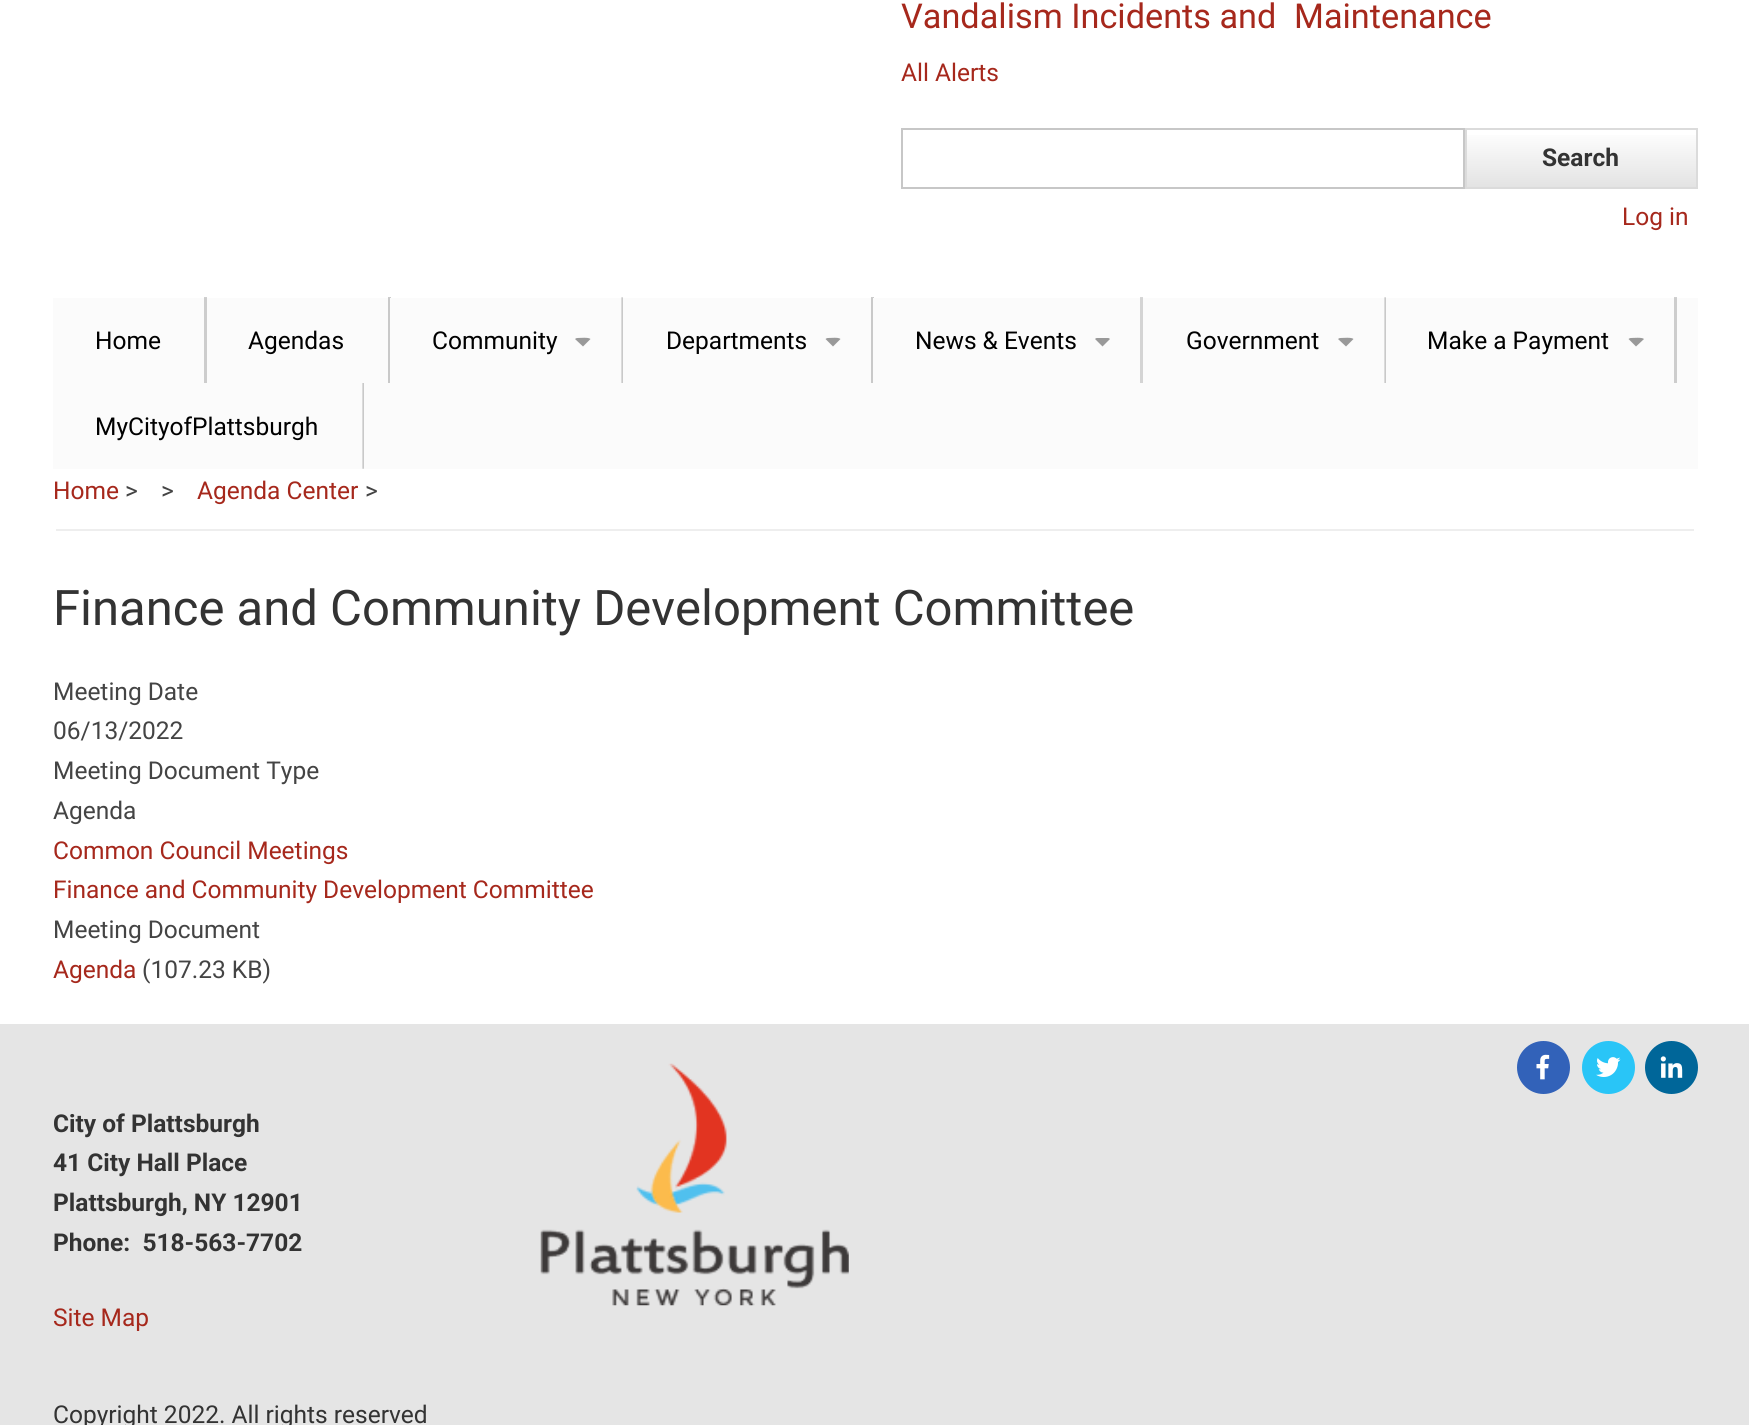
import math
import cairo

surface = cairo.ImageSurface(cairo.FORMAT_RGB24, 1749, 1425)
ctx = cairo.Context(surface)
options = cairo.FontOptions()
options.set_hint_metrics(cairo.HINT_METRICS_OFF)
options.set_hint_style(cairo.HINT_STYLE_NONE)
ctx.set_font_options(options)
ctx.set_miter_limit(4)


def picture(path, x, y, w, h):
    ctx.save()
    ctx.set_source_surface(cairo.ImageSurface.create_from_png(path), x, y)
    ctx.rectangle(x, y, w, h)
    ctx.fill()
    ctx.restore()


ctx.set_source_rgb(1, 1, 1)
ctx.paint()
ctx.set_source_rgb(0.816, 0.816, 0.816)
ctx.rectangle(1674, 297, 3, 1)
ctx.fill()
ctx.set_source_rgb(0.843, 0.843, 0.843)
ctx.rectangle(1140, 297, 3, 1)
ctx.fill()
ctx.set_source_rgb(0.8, 0.8, 0.8)
ctx.rectangle(871, 297, 3, 1)
ctx.fill()
ctx.rectangle(388, 297, 3, 1)
ctx.fill()
ctx.set_source_rgb(0.816, 0.816, 0.816)
ctx.rectangle(204, 297, 3, 1)
ctx.fill()
ctx.select_font_face("Roboto")
ctx.set_font_size(34.25)
ctx.set_source_rgb(0.651, 0.157, 0.11)
ctx.move_to(901, 28)
ctx.show_text("Vandalism Incidents and")
ctx.move_to(1294, 28)
ctx.show_text("Maintenance")
ctx.set_font_size(24.5)
ctx.move_to(901, 81)
ctx.show_text("All Alerts")
ctx.rectangle(902, 129, 562, 59)
ctx.set_source_rgb(0.78, 0.78, 0.78)
ctx.stroke()
gradient = cairo.LinearGradient(1581, 130, 1581, 187)
gradient.add_color_stop_rgba(0, 1, 1, 1, 1)
gradient.add_color_stop_rgba(1, 0.89, 0.89, 0.89, 1)
ctx.set_source(gradient)
ctx.rectangle(1467, 135, 229, 52)
ctx.fill()
ctx.rectangle(1466, 129, 231, 59)
ctx.set_source_rgb(0.859, 0.859, 0.859)
ctx.stroke()
ctx.select_font_face("Roboto", cairo.FONT_SLANT_NORMAL, cairo.FONT_WEIGHT_BOLD)
ctx.set_source_rgb(0.2, 0.2, 0.2)
ctx.move_to(1542, 166)
ctx.show_text("Search")
ctx.select_font_face("Roboto")
ctx.set_source_rgb(0.651, 0.157, 0.11)
ctx.move_to(1622, 225)
ctx.show_text("Log in")
ctx.set_source_rgb(0.984, 0.984, 0.984)
ctx.rectangle(53, 298, 1645, 171)
ctx.fill()
ctx.set_source_rgb(0.804, 0.804, 0.804)
ctx.rectangle(1674, 298, 3, 85)
ctx.fill()
ctx.set_source_rgb(0.831, 0.831, 0.831)
ctx.rectangle(1140, 298, 3, 85)
ctx.fill()
ctx.set_source_rgb(0.788, 0.788, 0.788)
ctx.rectangle(871, 298, 2, 85)
ctx.fill()
ctx.rectangle(388, 298, 2, 85)
ctx.fill()
ctx.set_source_rgb(0.804, 0.804, 0.804)
ctx.rectangle(204, 298, 3, 85)
ctx.fill()
ctx.set_source_rgb(0, 0, 0)
ctx.move_to(95, 349)
ctx.show_text("Home")
ctx.move_to(248, 349)
ctx.show_text("Agendas")
picture("img1.png", 621, 297, 2, 86)
ctx.move_to(432, 349)
ctx.show_text("Community")
ctx.set_source_rgb(0.6, 0.6, 0.6)
ctx.new_path()
ctx.move_to(577.5, 338)
ctx.curve_to(580, 338, 588.5, 337, 590.5, 339)
ctx.line_to(583, 346.5)
ctx.line_to(575, 339)
ctx.curve_to(575.5, 338.5, 576.5, 338, 577.5, 338)
ctx.close_path()
ctx.fill()
ctx.set_source_rgb(0, 0, 0)
ctx.move_to(666, 349)
ctx.show_text("Departments")
ctx.set_source_rgb(0.6, 0.6, 0.6)
ctx.new_path()
ctx.move_to(828, 338)
ctx.curve_to(831, 338, 838.5, 337, 840.5, 339)
ctx.line_to(833, 346.5)
ctx.line_to(825.5, 339)
ctx.curve_to(826, 338.5, 827, 338, 828, 338)
ctx.close_path()
ctx.fill()
ctx.set_source_rgb(0, 0, 0)
ctx.move_to(915, 349)
ctx.show_text("News & Events")
ctx.set_source_rgb(0.6, 0.6, 0.6)
ctx.new_path()
ctx.move_to(1097, 338)
ctx.line_to(1108, 338)
ctx.curve_to(1109, 338, 1109.5, 338.5, 1110, 339)
ctx.line_to(1102.5, 346.5)
ctx.line_to(1095, 339)
ctx.curve_to(1095.5, 338.5, 1096, 338, 1097, 338)
ctx.close_path()
ctx.fill()
picture("img1.png", 1384, 297, 2, 86)
ctx.set_source_rgb(0, 0, 0)
ctx.move_to(1186, 349)
ctx.show_text("Government")
ctx.set_source_rgb(0.6, 0.6, 0.6)
ctx.new_path()
ctx.move_to(1340.5, 338)
ctx.curve_to(1343, 338, 1351.5, 337, 1353.5, 339)
ctx.line_to(1346, 346.5)
ctx.line_to(1338, 339)
ctx.curve_to(1338.5, 338.5, 1339.5, 338, 1340.5, 338)
ctx.close_path()
ctx.fill()
ctx.set_source_rgb(0, 0, 0)
ctx.move_to(1427, 349)
ctx.show_text("Make a Payment")
ctx.set_source_rgb(0.6, 0.6, 0.6)
ctx.new_path()
ctx.move_to(1631, 338)
ctx.curve_to(1633.5, 338, 1642, 337, 1644, 339)
ctx.line_to(1636, 346.5)
ctx.line_to(1628.5, 339)
ctx.curve_to(1629, 338.5, 1630, 338, 1631, 338)
ctx.close_path()
ctx.fill()
picture("img2.png", 362, 383, 2, 86)
ctx.set_source_rgb(0, 0, 0)
ctx.move_to(95, 435)
ctx.show_text("MyCityofPlattsburgh")
ctx.set_source_rgb(0.933, 0.933, 0.933)
ctx.rectangle(56, 529, 1638, 2)
ctx.fill()
ctx.set_source_rgb(0.651, 0.157, 0.11)
ctx.move_to(53, 499)
ctx.show_text("Home")
ctx.set_source_rgb(0.267, 0.267, 0.267)
ctx.move_to(125, 499)
ctx.show_text(">")
ctx.move_to(161, 499)
ctx.show_text(">")
ctx.set_source_rgb(0.651, 0.157, 0.11)
ctx.move_to(197, 499)
ctx.show_text("Agenda Center")
ctx.set_source_rgb(0.267, 0.267, 0.267)
ctx.move_to(365, 499)
ctx.show_text(">")
ctx.set_font_size(49)
ctx.set_source_rgb(0.2, 0.2, 0.2)
ctx.move_to(53, 625)
ctx.show_text("Finance and Community Development Committee")
ctx.set_font_size(24.5)
ctx.set_source_rgb(0.267, 0.267, 0.267)
ctx.move_to(53, 700)
ctx.show_text("Meeting Date")
ctx.move_to(53, 739)
ctx.show_text("06/13/2022")
ctx.move_to(53, 779)
ctx.show_text("Meeting Document Type")
ctx.move_to(53, 819)
ctx.show_text("Agenda")
ctx.set_source_rgb(0.651, 0.157, 0.11)
ctx.move_to(53, 859)
ctx.show_text("Common Council Meetings")
ctx.move_to(53, 898)
ctx.show_text("Finance and Community Development Committee")
ctx.set_source_rgb(0.267, 0.267, 0.267)
ctx.move_to(53, 938)
ctx.show_text("Meeting Document")
ctx.set_source_rgb(0.651, 0.157, 0.11)
ctx.move_to(53, 978)
ctx.show_text("Agenda")
ctx.set_source_rgb(0.267, 0.267, 0.267)
ctx.move_to(142, 978)
ctx.show_text("(107.23 KB)")
ctx.set_source_rgb(0.898, 0.898, 0.898)
ctx.rectangle(0, 1024, 1749, 401)
ctx.fill()
ctx.set_source_rgb(0.196, 0.384, 0.725)
ctx.arc(1543.5, 1067.5, 26.5, 0, 2 * math.pi)
ctx.fill()
picture("img3.png", 1536, 1054, 14, 26)
ctx.set_source_rgb(0.161, 0.773, 0.965)
ctx.arc(1608.5, 1067.5, 26.5, 0, 2 * math.pi)
ctx.fill()
picture("img4.png", 1596, 1057, 25, 20)
ctx.set_source_rgb(0, 0.4, 0.6)
ctx.arc(1671.5, 1067.5, 26.5, 0, 2 * math.pi)
ctx.fill()
picture("img5.png", 1660, 1056, 23, 22)
ctx.select_font_face("Roboto", cairo.FONT_SLANT_NORMAL, cairo.FONT_WEIGHT_BOLD)
ctx.set_source_rgb(0.2, 0.2, 0.2)
ctx.move_to(53, 1132)
ctx.show_text("City of Plattsburgh")
picture("img6.png", 540, 1063, 309, 243)
ctx.move_to(53, 1171)
ctx.show_text("41 City Hall Place")
ctx.move_to(53, 1211)
ctx.show_text("Plattsburgh, NY 12901")
ctx.move_to(53, 1251)
ctx.show_text("Phone:  518-563-7702")
ctx.select_font_face("Roboto")
ctx.set_source_rgb(0.651, 0.157, 0.11)
ctx.move_to(53, 1326)
ctx.show_text("Site Map")
ctx.set_source_rgb(0.2, 0.2, 0.2)
ctx.move_to(53, 1423)
ctx.show_text("Copyright 2022. All rights reserved")
surface.write_to_png("page.png")
